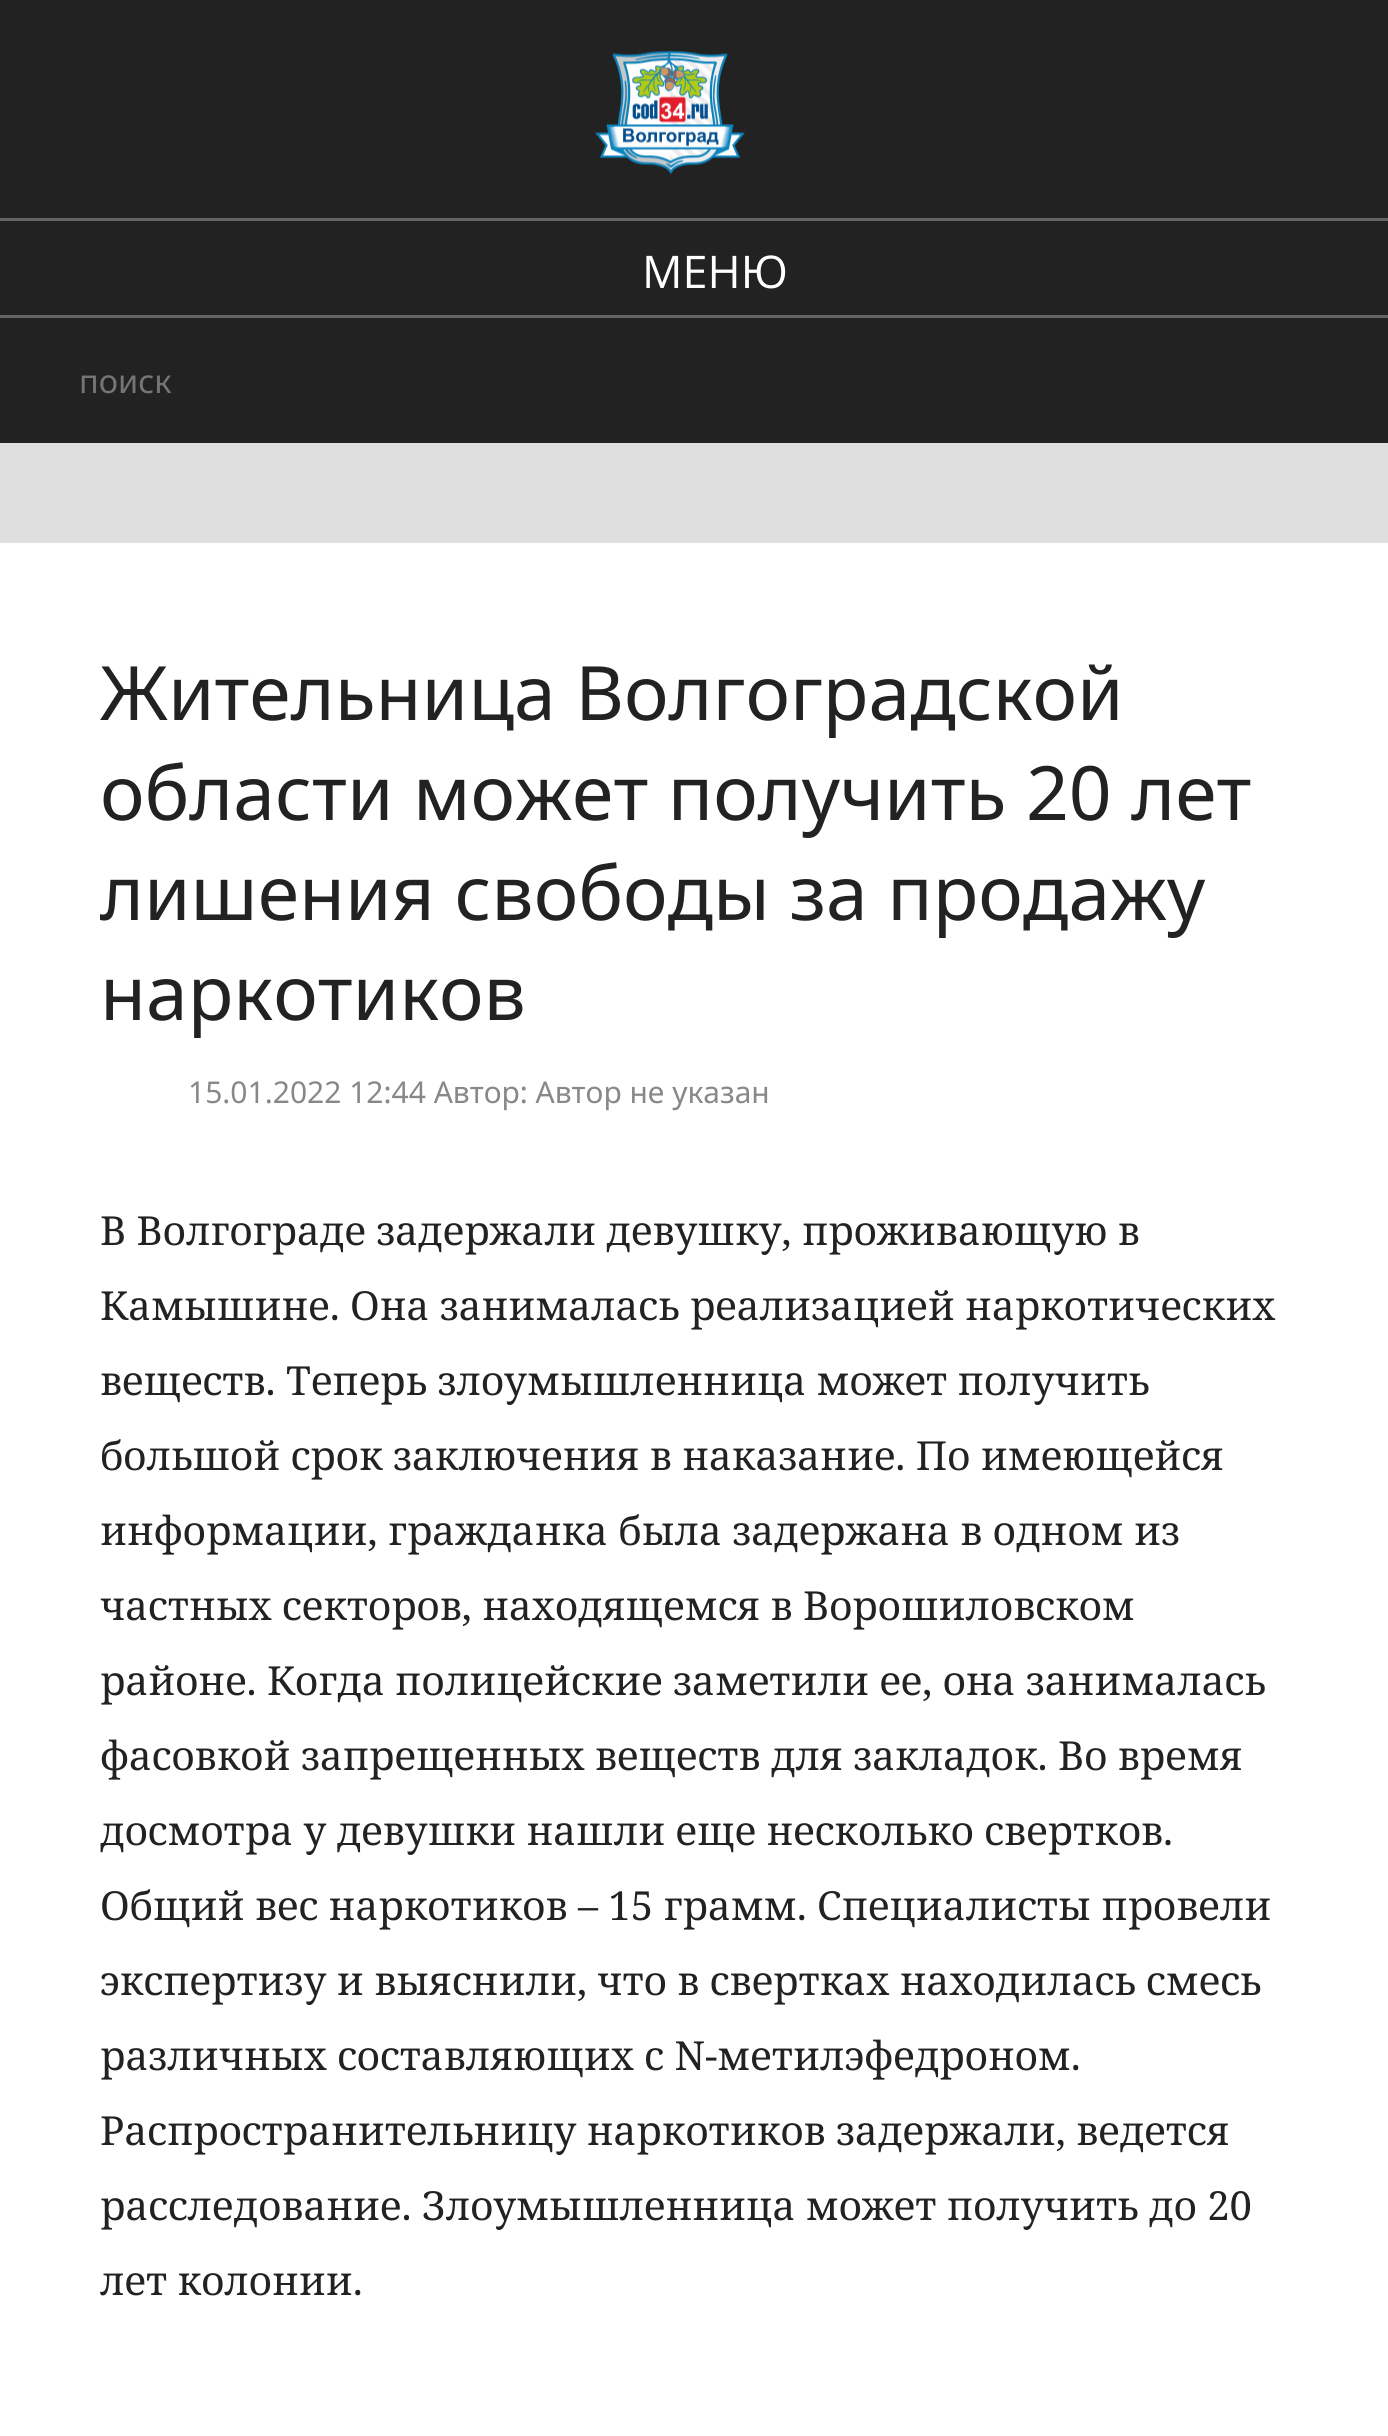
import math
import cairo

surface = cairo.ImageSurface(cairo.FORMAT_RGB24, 1388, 2436)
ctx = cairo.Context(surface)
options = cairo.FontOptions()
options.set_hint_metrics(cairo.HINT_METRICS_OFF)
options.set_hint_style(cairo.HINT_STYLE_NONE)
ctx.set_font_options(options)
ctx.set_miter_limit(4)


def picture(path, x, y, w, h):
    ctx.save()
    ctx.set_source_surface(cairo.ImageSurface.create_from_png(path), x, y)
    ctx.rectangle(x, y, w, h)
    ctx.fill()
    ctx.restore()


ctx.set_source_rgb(0.875, 0.875, 0.875)
ctx.paint()
ctx.set_source_rgb(0.133, 0.133, 0.133)
ctx.rectangle(0, 0, 1388, 443)
ctx.fill()
picture("img1.png", 595, 50, 150, 124)
ctx.set_source_rgb(0.4, 0.4, 0.4)
ctx.rectangle(0, 218, 1388, 3)
ctx.fill()
ctx.rectangle(0, 315, 1388, 3)
ctx.fill()
ctx.select_font_face("Open Sans")
ctx.set_font_size(45)
ctx.set_source_rgb(1, 1, 1)
ctx.move_to(642, 288)
ctx.show_text("МЕНЮ")
ctx.select_font_face("Noto Sans")
ctx.set_font_size(32.5)
ctx.set_source_rgb(0.459, 0.459, 0.459)
ctx.move_to(79, 393)
ctx.show_text("поиск")
ctx.set_source_rgb(1, 1, 1)
ctx.rectangle(0, 543, 1388, 1893)
ctx.fill()
ctx.set_font_size(75)
ctx.set_source_rgb(0.133, 0.133, 0.133)
ctx.move_to(100, 720)
ctx.show_text("Жительница Волгоградской")
ctx.move_to(100, 820)
ctx.show_text("области может получить 20 лет")
ctx.move_to(100, 920)
ctx.show_text("лишения свободы за продажу")
ctx.move_to(100, 1020)
ctx.show_text("наркотиков")
ctx.set_font_size(30)
ctx.set_source_rgb(0.533, 0.533, 0.533)
ctx.move_to(188, 1103)
ctx.show_text("15.01.2022 12:44 Автор: Автор не указан")
ctx.select_font_face("Noto Serif")
ctx.set_font_size(40)
ctx.set_source_rgb(0.133, 0.133, 0.133)
ctx.move_to(100, 1245)
ctx.show_text("В Волгограде задержали девушку, проживающую в")
ctx.move_to(100, 1320)
ctx.show_text("Камышине. Она занималась реализацией наркотических")
ctx.move_to(100, 1395)
ctx.show_text("веществ. Теперь злоумышленница может получить")
ctx.move_to(100, 1470)
ctx.show_text("большой срок заключения в наказание. По имеющейся")
ctx.move_to(100, 1545)
ctx.show_text("информации, гражданка была задержана в одном из")
ctx.move_to(100, 1620)
ctx.show_text("частных секторов, находящемся в Ворошиловском")
ctx.move_to(100, 1695)
ctx.show_text("районе. Когда полицейские заметили ее, она занималась")
ctx.move_to(100, 1770)
ctx.show_text("фасовкой запрещенных веществ для закладок. Во время")
ctx.move_to(100, 1845)
ctx.show_text("досмотра у девушки нашли еще несколько свертков.")
ctx.move_to(100, 1920)
ctx.show_text("Общий вес наркотиков – 15 грамм. Специалисты провели")
ctx.move_to(100, 1995)
ctx.show_text("экспертизу и выяснили, что в свертках находилась смесь")
ctx.move_to(100, 2070)
ctx.show_text("различных составляющих с N-метилэфедроном.")
ctx.move_to(100, 2145)
ctx.show_text("Распространительницу наркотиков задержали, ведется")
ctx.move_to(100, 2220)
ctx.show_text("расследование. Злоумышленница может получить до 20")
ctx.move_to(100, 2295)
ctx.show_text("лет колонии.")
surface.write_to_png("page.png")
